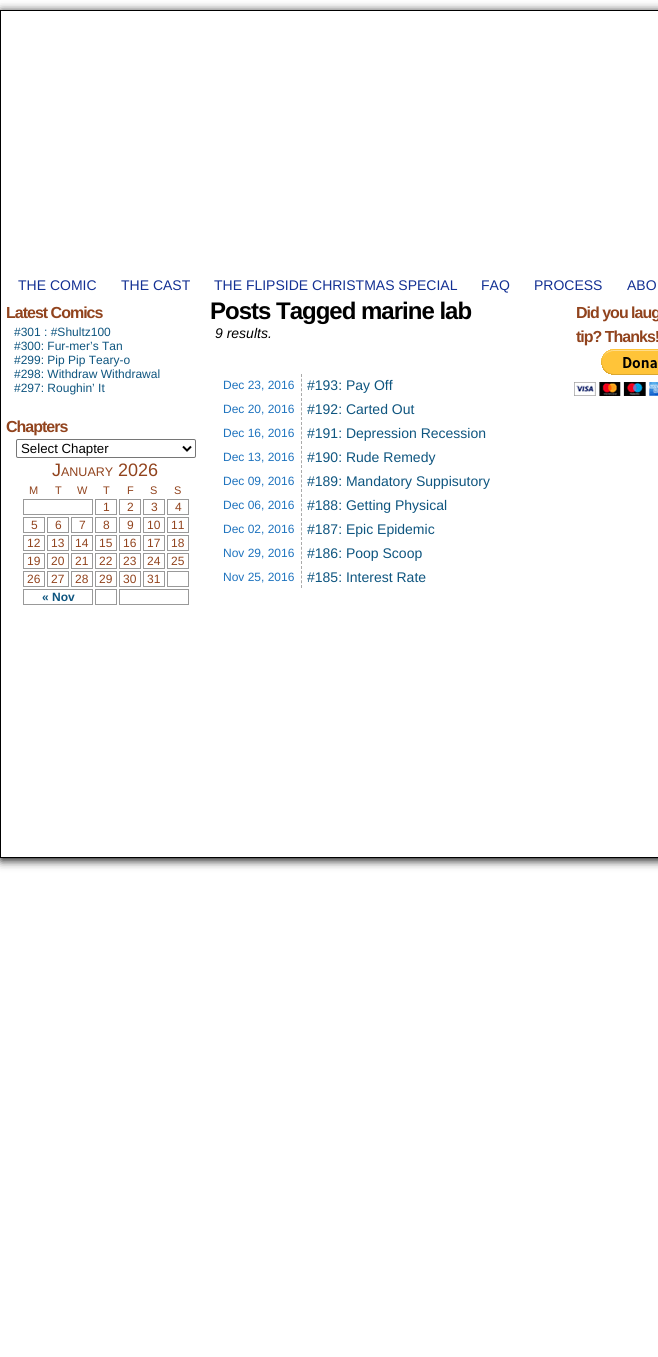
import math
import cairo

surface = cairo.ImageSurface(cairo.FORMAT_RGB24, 658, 1357)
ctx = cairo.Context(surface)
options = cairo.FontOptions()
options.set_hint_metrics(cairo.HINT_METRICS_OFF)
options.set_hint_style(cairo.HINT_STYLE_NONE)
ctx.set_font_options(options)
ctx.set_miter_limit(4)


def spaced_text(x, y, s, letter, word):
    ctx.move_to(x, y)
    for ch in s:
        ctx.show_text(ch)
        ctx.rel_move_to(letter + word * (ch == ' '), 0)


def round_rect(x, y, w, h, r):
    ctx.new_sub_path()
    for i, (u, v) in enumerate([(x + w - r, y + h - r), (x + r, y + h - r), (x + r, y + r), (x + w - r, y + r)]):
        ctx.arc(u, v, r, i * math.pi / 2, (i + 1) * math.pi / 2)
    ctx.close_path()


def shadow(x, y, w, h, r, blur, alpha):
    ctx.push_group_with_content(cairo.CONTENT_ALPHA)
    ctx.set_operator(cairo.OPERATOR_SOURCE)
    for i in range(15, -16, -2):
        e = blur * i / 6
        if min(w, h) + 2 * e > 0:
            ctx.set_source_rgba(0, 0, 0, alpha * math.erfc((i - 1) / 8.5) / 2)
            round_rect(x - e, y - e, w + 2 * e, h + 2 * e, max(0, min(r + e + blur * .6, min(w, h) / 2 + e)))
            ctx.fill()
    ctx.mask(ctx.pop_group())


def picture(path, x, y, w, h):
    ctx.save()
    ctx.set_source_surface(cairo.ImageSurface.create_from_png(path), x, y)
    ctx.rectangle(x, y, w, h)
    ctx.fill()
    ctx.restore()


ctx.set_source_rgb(1, 1, 1)
ctx.paint()
ctx.save()
ctx.set_fill_rule(cairo.FILL_RULE_EVEN_ODD)
ctx.new_path()
ctx.move_to(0, 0)
ctx.line_to(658, 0)
ctx.line_to(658, 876)
ctx.line_to(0, 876)
ctx.close_path()
ctx.move_to(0, 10)
ctx.line_to(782, 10)
ctx.line_to(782, 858)
ctx.line_to(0, 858)
ctx.close_path()
ctx.clip()
ctx.set_source_rgb(0, 0, 0)
shadow(1, 12, 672, 848, 0, 5, 1)
ctx.restore()
ctx.rectangle(0.5, 10.5, 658, 847)
ctx.set_source_rgb(0, 0, 0)
ctx.set_line_width(1)
ctx.stroke()
ctx.select_font_face("Liberation Sans")
ctx.set_font_size(14)
ctx.set_source_rgb(0.078, 0.188, 0.576)
ctx.move_to(18, 290)
ctx.show_text("THE COMIC")
ctx.move_to(121, 290)
ctx.show_text("THE CAST")
ctx.move_to(214, 290)
ctx.show_text("THE FLIPSIDE CHRISTMAS SPECIAL")
ctx.move_to(481, 290)
ctx.show_text("FAQ")
ctx.move_to(534, 290)
ctx.show_text("PROCESS")
ctx.move_to(627, 290)
ctx.show_text("ABO")
ctx.select_font_face("Liberation Sans", cairo.FONT_SLANT_NORMAL, cairo.FONT_WEIGHT_BOLD)
ctx.set_font_size(16)
ctx.set_source_rgb(0.569, 0.263, 0.114)
spaced_text(6, 318, "Latest Comics", -1, 0)
ctx.select_font_face("Liberation Sans")
ctx.set_font_size(12)
ctx.set_source_rgb(0.055, 0.333, 0.498)
ctx.move_to(14, 336)
ctx.show_text("#301 : #Shultz100")
ctx.move_to(14, 350)
ctx.show_text("#300: Fur-mer’s Tan")
ctx.move_to(14, 364)
ctx.show_text("#299: Pip Pip Teary-o")
ctx.move_to(14, 378)
ctx.show_text("#298: Withdraw Withdrawal")
ctx.move_to(14, 392)
ctx.show_text("#297: Roughin’ It")
ctx.select_font_face("Liberation Sans", cairo.FONT_SLANT_NORMAL, cairo.FONT_WEIGHT_BOLD)
ctx.set_font_size(16)
ctx.set_source_rgb(0.569, 0.263, 0.114)
spaced_text(6, 432, "Chapters", -1, 0)
round_rect(16.5, 439.5, 179, 18, 1.5)
ctx.set_source_rgb(0.463, 0.463, 0.463)
ctx.stroke()
ctx.new_path()
ctx.move_to(183, 446.5)
ctx.line_to(187, 450.5)
ctx.line_to(191, 446.5)
ctx.set_source_rgb(0, 0, 0)
ctx.set_line_width(2)
ctx.stroke()
ctx.select_font_face("Liberation Sans")
ctx.set_font_size(13.25)
ctx.move_to(21, 453)
ctx.show_text("Select Chapter")
ctx.set_font_size(18)
ctx.set_source_rgb(0.569, 0.263, 0.114)
ctx.move_to(52, 476)
ctx.show_text("J")
ctx.set_font_size(12.5)
ctx.move_to(61, 476)
ctx.show_text("ANUARY")
ctx.set_font_size(18)
ctx.move_to(118, 476)
ctx.show_text("2026")
ctx.set_font_size(11)
ctx.move_to(29, 494)
ctx.show_text("M")
ctx.move_to(55, 494)
ctx.show_text("T")
ctx.move_to(77, 494)
ctx.show_text("W")
ctx.move_to(103, 494)
ctx.show_text("T")
ctx.move_to(127, 494)
ctx.show_text("F")
ctx.move_to(150, 494)
ctx.show_text("S")
ctx.move_to(174, 494)
ctx.show_text("S")
ctx.rectangle(23.5, 499.5, 69, 15)
ctx.set_source_rgb(0.6, 0.6, 0.6)
ctx.set_line_width(1)
ctx.stroke()
ctx.rectangle(95.5, 499.5, 21, 15)
ctx.stroke()
ctx.set_font_size(12)
ctx.set_source_rgb(0.569, 0.263, 0.114)
ctx.move_to(103, 511)
ctx.show_text("1")
ctx.rectangle(119.5, 499.5, 21, 15)
ctx.set_source_rgb(0.6, 0.6, 0.6)
ctx.stroke()
ctx.set_source_rgb(0.569, 0.263, 0.114)
ctx.move_to(127, 511)
ctx.show_text("2")
ctx.rectangle(143.5, 499.5, 21, 15)
ctx.set_source_rgb(0.6, 0.6, 0.6)
ctx.stroke()
ctx.set_source_rgb(0.569, 0.263, 0.114)
ctx.move_to(151, 511)
ctx.show_text("3")
ctx.rectangle(167.5, 499.5, 21, 15)
ctx.set_source_rgb(0.6, 0.6, 0.6)
ctx.stroke()
ctx.set_source_rgb(0.569, 0.263, 0.114)
ctx.move_to(175, 511)
ctx.show_text("4")
ctx.rectangle(23.5, 517.5, 21, 15)
ctx.set_source_rgb(0.6, 0.6, 0.6)
ctx.stroke()
ctx.set_source_rgb(0.569, 0.263, 0.114)
ctx.move_to(31, 529)
ctx.show_text("5")
ctx.rectangle(47.5, 517.5, 21, 15)
ctx.set_source_rgb(0.6, 0.6, 0.6)
ctx.stroke()
ctx.set_source_rgb(0.569, 0.263, 0.114)
ctx.move_to(55, 529)
ctx.show_text("6")
ctx.rectangle(71.5, 517.5, 21, 15)
ctx.set_source_rgb(0.6, 0.6, 0.6)
ctx.stroke()
ctx.set_source_rgb(0.569, 0.263, 0.114)
ctx.move_to(79, 529)
ctx.show_text("7")
ctx.rectangle(95.5, 517.5, 21, 15)
ctx.set_source_rgb(0.6, 0.6, 0.6)
ctx.stroke()
ctx.set_source_rgb(0.569, 0.263, 0.114)
ctx.move_to(103, 529)
ctx.show_text("8")
ctx.rectangle(119.5, 517.5, 21, 15)
ctx.set_source_rgb(0.6, 0.6, 0.6)
ctx.stroke()
ctx.set_source_rgb(0.569, 0.263, 0.114)
ctx.move_to(127, 529)
ctx.show_text("9")
ctx.rectangle(143.5, 517.5, 21, 15)
ctx.set_source_rgb(0.6, 0.6, 0.6)
ctx.stroke()
ctx.set_source_rgb(0.569, 0.263, 0.114)
ctx.move_to(147, 529)
ctx.show_text("10")
ctx.rectangle(167.5, 517.5, 21, 15)
ctx.set_source_rgb(0.6, 0.6, 0.6)
ctx.stroke()
ctx.set_source_rgb(0.569, 0.263, 0.114)
ctx.move_to(171, 529)
ctx.show_text("11")
ctx.rectangle(23.5, 535.5, 21, 15)
ctx.set_source_rgb(0.6, 0.6, 0.6)
ctx.stroke()
ctx.set_source_rgb(0.569, 0.263, 0.114)
ctx.move_to(27, 547)
ctx.show_text("12")
ctx.rectangle(47.5, 535.5, 21, 15)
ctx.set_source_rgb(0.6, 0.6, 0.6)
ctx.stroke()
ctx.set_source_rgb(0.569, 0.263, 0.114)
ctx.move_to(51, 547)
ctx.show_text("13")
ctx.rectangle(71.5, 535.5, 21, 15)
ctx.set_source_rgb(0.6, 0.6, 0.6)
ctx.stroke()
ctx.set_source_rgb(0.569, 0.263, 0.114)
ctx.move_to(75, 547)
ctx.show_text("14")
ctx.rectangle(95.5, 535.5, 21, 15)
ctx.set_source_rgb(0.6, 0.6, 0.6)
ctx.stroke()
ctx.set_source_rgb(0.569, 0.263, 0.114)
ctx.move_to(99, 547)
ctx.show_text("15")
ctx.rectangle(119.5, 535.5, 21, 15)
ctx.set_source_rgb(0.6, 0.6, 0.6)
ctx.stroke()
ctx.set_source_rgb(0.569, 0.263, 0.114)
ctx.move_to(123, 547)
ctx.show_text("16")
ctx.rectangle(143.5, 535.5, 21, 15)
ctx.set_source_rgb(0.6, 0.6, 0.6)
ctx.stroke()
ctx.set_source_rgb(0.569, 0.263, 0.114)
ctx.move_to(147, 547)
ctx.show_text("17")
ctx.rectangle(167.5, 535.5, 21, 15)
ctx.set_source_rgb(0.6, 0.6, 0.6)
ctx.stroke()
ctx.set_source_rgb(0.569, 0.263, 0.114)
ctx.move_to(171, 547)
ctx.show_text("18")
ctx.rectangle(23.5, 553.5, 21, 15)
ctx.set_source_rgb(0.6, 0.6, 0.6)
ctx.stroke()
ctx.set_source_rgb(0.569, 0.263, 0.114)
ctx.move_to(27, 565)
ctx.show_text("19")
ctx.rectangle(47.5, 553.5, 21, 15)
ctx.set_source_rgb(0.6, 0.6, 0.6)
ctx.stroke()
ctx.set_source_rgb(0.569, 0.263, 0.114)
ctx.move_to(51, 565)
ctx.show_text("20")
ctx.rectangle(71.5, 553.5, 21, 15)
ctx.set_source_rgb(0.6, 0.6, 0.6)
ctx.stroke()
ctx.set_source_rgb(0.569, 0.263, 0.114)
ctx.move_to(75, 565)
ctx.show_text("21")
ctx.rectangle(95.5, 553.5, 21, 15)
ctx.set_source_rgb(0.6, 0.6, 0.6)
ctx.stroke()
ctx.set_source_rgb(0.569, 0.263, 0.114)
ctx.move_to(99, 565)
ctx.show_text("22")
ctx.rectangle(119.5, 553.5, 21, 15)
ctx.set_source_rgb(0.6, 0.6, 0.6)
ctx.stroke()
ctx.set_source_rgb(0.569, 0.263, 0.114)
ctx.move_to(123, 565)
ctx.show_text("23")
ctx.rectangle(143.5, 553.5, 21, 15)
ctx.set_source_rgb(0.6, 0.6, 0.6)
ctx.stroke()
ctx.set_source_rgb(0.569, 0.263, 0.114)
ctx.move_to(147, 565)
ctx.show_text("24")
ctx.rectangle(167.5, 553.5, 21, 15)
ctx.set_source_rgb(0.6, 0.6, 0.6)
ctx.stroke()
ctx.set_source_rgb(0.569, 0.263, 0.114)
ctx.move_to(171, 565)
ctx.show_text("25")
ctx.rectangle(23.5, 571.5, 21, 15)
ctx.set_source_rgb(0.6, 0.6, 0.6)
ctx.stroke()
ctx.set_source_rgb(0.569, 0.263, 0.114)
ctx.move_to(27, 583)
ctx.show_text("26")
ctx.rectangle(47.5, 571.5, 21, 15)
ctx.set_source_rgb(0.6, 0.6, 0.6)
ctx.stroke()
ctx.set_source_rgb(0.569, 0.263, 0.114)
ctx.move_to(51, 583)
ctx.show_text("27")
ctx.rectangle(71.5, 571.5, 21, 15)
ctx.set_source_rgb(0.6, 0.6, 0.6)
ctx.stroke()
ctx.set_source_rgb(0.569, 0.263, 0.114)
ctx.move_to(75, 583)
ctx.show_text("28")
ctx.rectangle(95.5, 571.5, 21, 15)
ctx.set_source_rgb(0.6, 0.6, 0.6)
ctx.stroke()
ctx.set_source_rgb(0.569, 0.263, 0.114)
ctx.move_to(99, 583)
ctx.show_text("29")
ctx.rectangle(119.5, 571.5, 21, 15)
ctx.set_source_rgb(0.6, 0.6, 0.6)
ctx.stroke()
ctx.set_source_rgb(0.569, 0.263, 0.114)
ctx.move_to(123, 583)
ctx.show_text("30")
ctx.rectangle(143.5, 571.5, 21, 15)
ctx.set_source_rgb(0.6, 0.6, 0.6)
ctx.stroke()
ctx.set_source_rgb(0.569, 0.263, 0.114)
ctx.move_to(147, 583)
ctx.show_text("31")
ctx.rectangle(167.5, 571.5, 21, 15)
ctx.set_source_rgb(0.6, 0.6, 0.6)
ctx.stroke()
ctx.rectangle(23.5, 589.5, 69, 15)
ctx.stroke()
ctx.select_font_face("Liberation Sans", cairo.FONT_SLANT_NORMAL, cairo.FONT_WEIGHT_BOLD)
ctx.set_source_rgb(0.055, 0.333, 0.498)
ctx.move_to(42, 601)
ctx.show_text("« Nov")
ctx.rectangle(95.5, 589.5, 21, 15)
ctx.set_source_rgb(0.6, 0.6, 0.6)
ctx.stroke()
ctx.rectangle(119.5, 589.5, 69, 15)
ctx.stroke()
ctx.set_font_size(24)
ctx.set_source_rgb(0, 0, 0)
spaced_text(210, 319, "Posts Tagged marine lab", -1, 0)
ctx.select_font_face("Liberation Sans", cairo.FONT_SLANT_ITALIC)
ctx.set_font_size(14)
ctx.move_to(215, 338)
ctx.show_text("9 results.")
ctx.select_font_face("Liberation Sans")
ctx.set_font_size(12)
ctx.set_source_rgb(0.118, 0.451, 0.745)
ctx.move_to(223, 389)
ctx.show_text("Dec 23, 2016")
ctx.new_path()
ctx.move_to(301.5, 374)
ctx.line_to(301.5, 396)
ctx.move_to(301.5, 398)
ctx.line_to(301.5, 420)
ctx.set_source_rgb(0.667, 0.667, 0.667)
ctx.set_dash([3, 1.75])
ctx.stroke()
ctx.set_font_size(14)
ctx.set_source_rgb(0.055, 0.333, 0.498)
ctx.move_to(307, 390)
ctx.show_text("#193: Pay Off")
ctx.set_font_size(12)
ctx.set_source_rgb(0.118, 0.451, 0.745)
ctx.move_to(223, 413)
ctx.show_text("Dec 20, 2016")
ctx.set_font_size(14)
ctx.set_source_rgb(0.055, 0.333, 0.498)
ctx.move_to(307, 414)
ctx.show_text("#192: Carted Out")
ctx.set_font_size(12)
ctx.set_source_rgb(0.118, 0.451, 0.745)
ctx.move_to(223, 437)
ctx.show_text("Dec 16, 2016")
ctx.new_path()
ctx.move_to(301.5, 422)
ctx.line_to(301.5, 444)
ctx.move_to(301.5, 446)
ctx.line_to(301.5, 468)
ctx.set_source_rgb(0.667, 0.667, 0.667)
ctx.stroke()
ctx.set_font_size(14)
ctx.set_source_rgb(0.055, 0.333, 0.498)
ctx.move_to(307, 438)
ctx.show_text("#191: Depression Recession")
ctx.set_font_size(12)
ctx.set_source_rgb(0.118, 0.451, 0.745)
ctx.move_to(223, 461)
ctx.show_text("Dec 13, 2016")
ctx.set_font_size(14)
ctx.set_source_rgb(0.055, 0.333, 0.498)
ctx.move_to(307, 462)
ctx.show_text("#190: Rude Remedy")
ctx.set_font_size(12)
ctx.set_source_rgb(0.118, 0.451, 0.745)
ctx.move_to(223, 485)
ctx.show_text("Dec 09, 2016")
ctx.new_path()
ctx.move_to(301.5, 470)
ctx.line_to(301.5, 492)
ctx.move_to(301.5, 494)
ctx.line_to(301.5, 516)
ctx.set_source_rgb(0.667, 0.667, 0.667)
ctx.stroke()
ctx.set_font_size(14)
ctx.set_source_rgb(0.055, 0.333, 0.498)
ctx.move_to(307, 486)
ctx.show_text("#189: Mandatory Suppisutory")
ctx.set_font_size(12)
ctx.set_source_rgb(0.118, 0.451, 0.745)
ctx.move_to(223, 509)
ctx.show_text("Dec 06, 2016")
ctx.set_font_size(14)
ctx.set_source_rgb(0.055, 0.333, 0.498)
ctx.move_to(307, 510)
ctx.show_text("#188: Getting Physical")
ctx.set_font_size(12)
ctx.set_source_rgb(0.118, 0.451, 0.745)
ctx.move_to(223, 533)
ctx.show_text("Dec 02, 2016")
ctx.new_path()
ctx.move_to(301.5, 518)
ctx.line_to(301.5, 540)
ctx.move_to(301.5, 542)
ctx.line_to(301.5, 564)
ctx.set_source_rgb(0.667, 0.667, 0.667)
ctx.stroke()
ctx.set_font_size(14)
ctx.set_source_rgb(0.055, 0.333, 0.498)
ctx.move_to(307, 534)
ctx.show_text("#187: Epic Epidemic")
ctx.set_font_size(12)
ctx.set_source_rgb(0.118, 0.451, 0.745)
ctx.move_to(223, 557)
ctx.show_text("Nov 29, 2016")
ctx.set_font_size(14)
ctx.set_source_rgb(0.055, 0.333, 0.498)
ctx.move_to(307, 558)
ctx.show_text("#186: Poop Scoop")
ctx.set_font_size(12)
ctx.set_source_rgb(0.118, 0.451, 0.745)
ctx.move_to(223, 581)
ctx.show_text("Nov 25, 2016")
ctx.new_path()
ctx.move_to(301.5, 566)
ctx.line_to(301.5, 588)
ctx.set_source_rgb(0.667, 0.667, 0.667)
ctx.stroke()
ctx.set_font_size(14)
ctx.set_source_rgb(0.055, 0.333, 0.498)
ctx.move_to(307, 582)
ctx.show_text("#185: Interest Rate")
ctx.select_font_face("Liberation Sans", cairo.FONT_SLANT_NORMAL, cairo.FONT_WEIGHT_BOLD)
ctx.set_font_size(16)
ctx.set_source_rgb(0.569, 0.263, 0.114)
spaced_text(576, 318, "Did you laug", -1, 0)
spaced_text(576, 342, "tip? Thanks!", -1, 0)
picture("img1.png", 574, 349, 84, 47)
surface.write_to_png("page.png")
